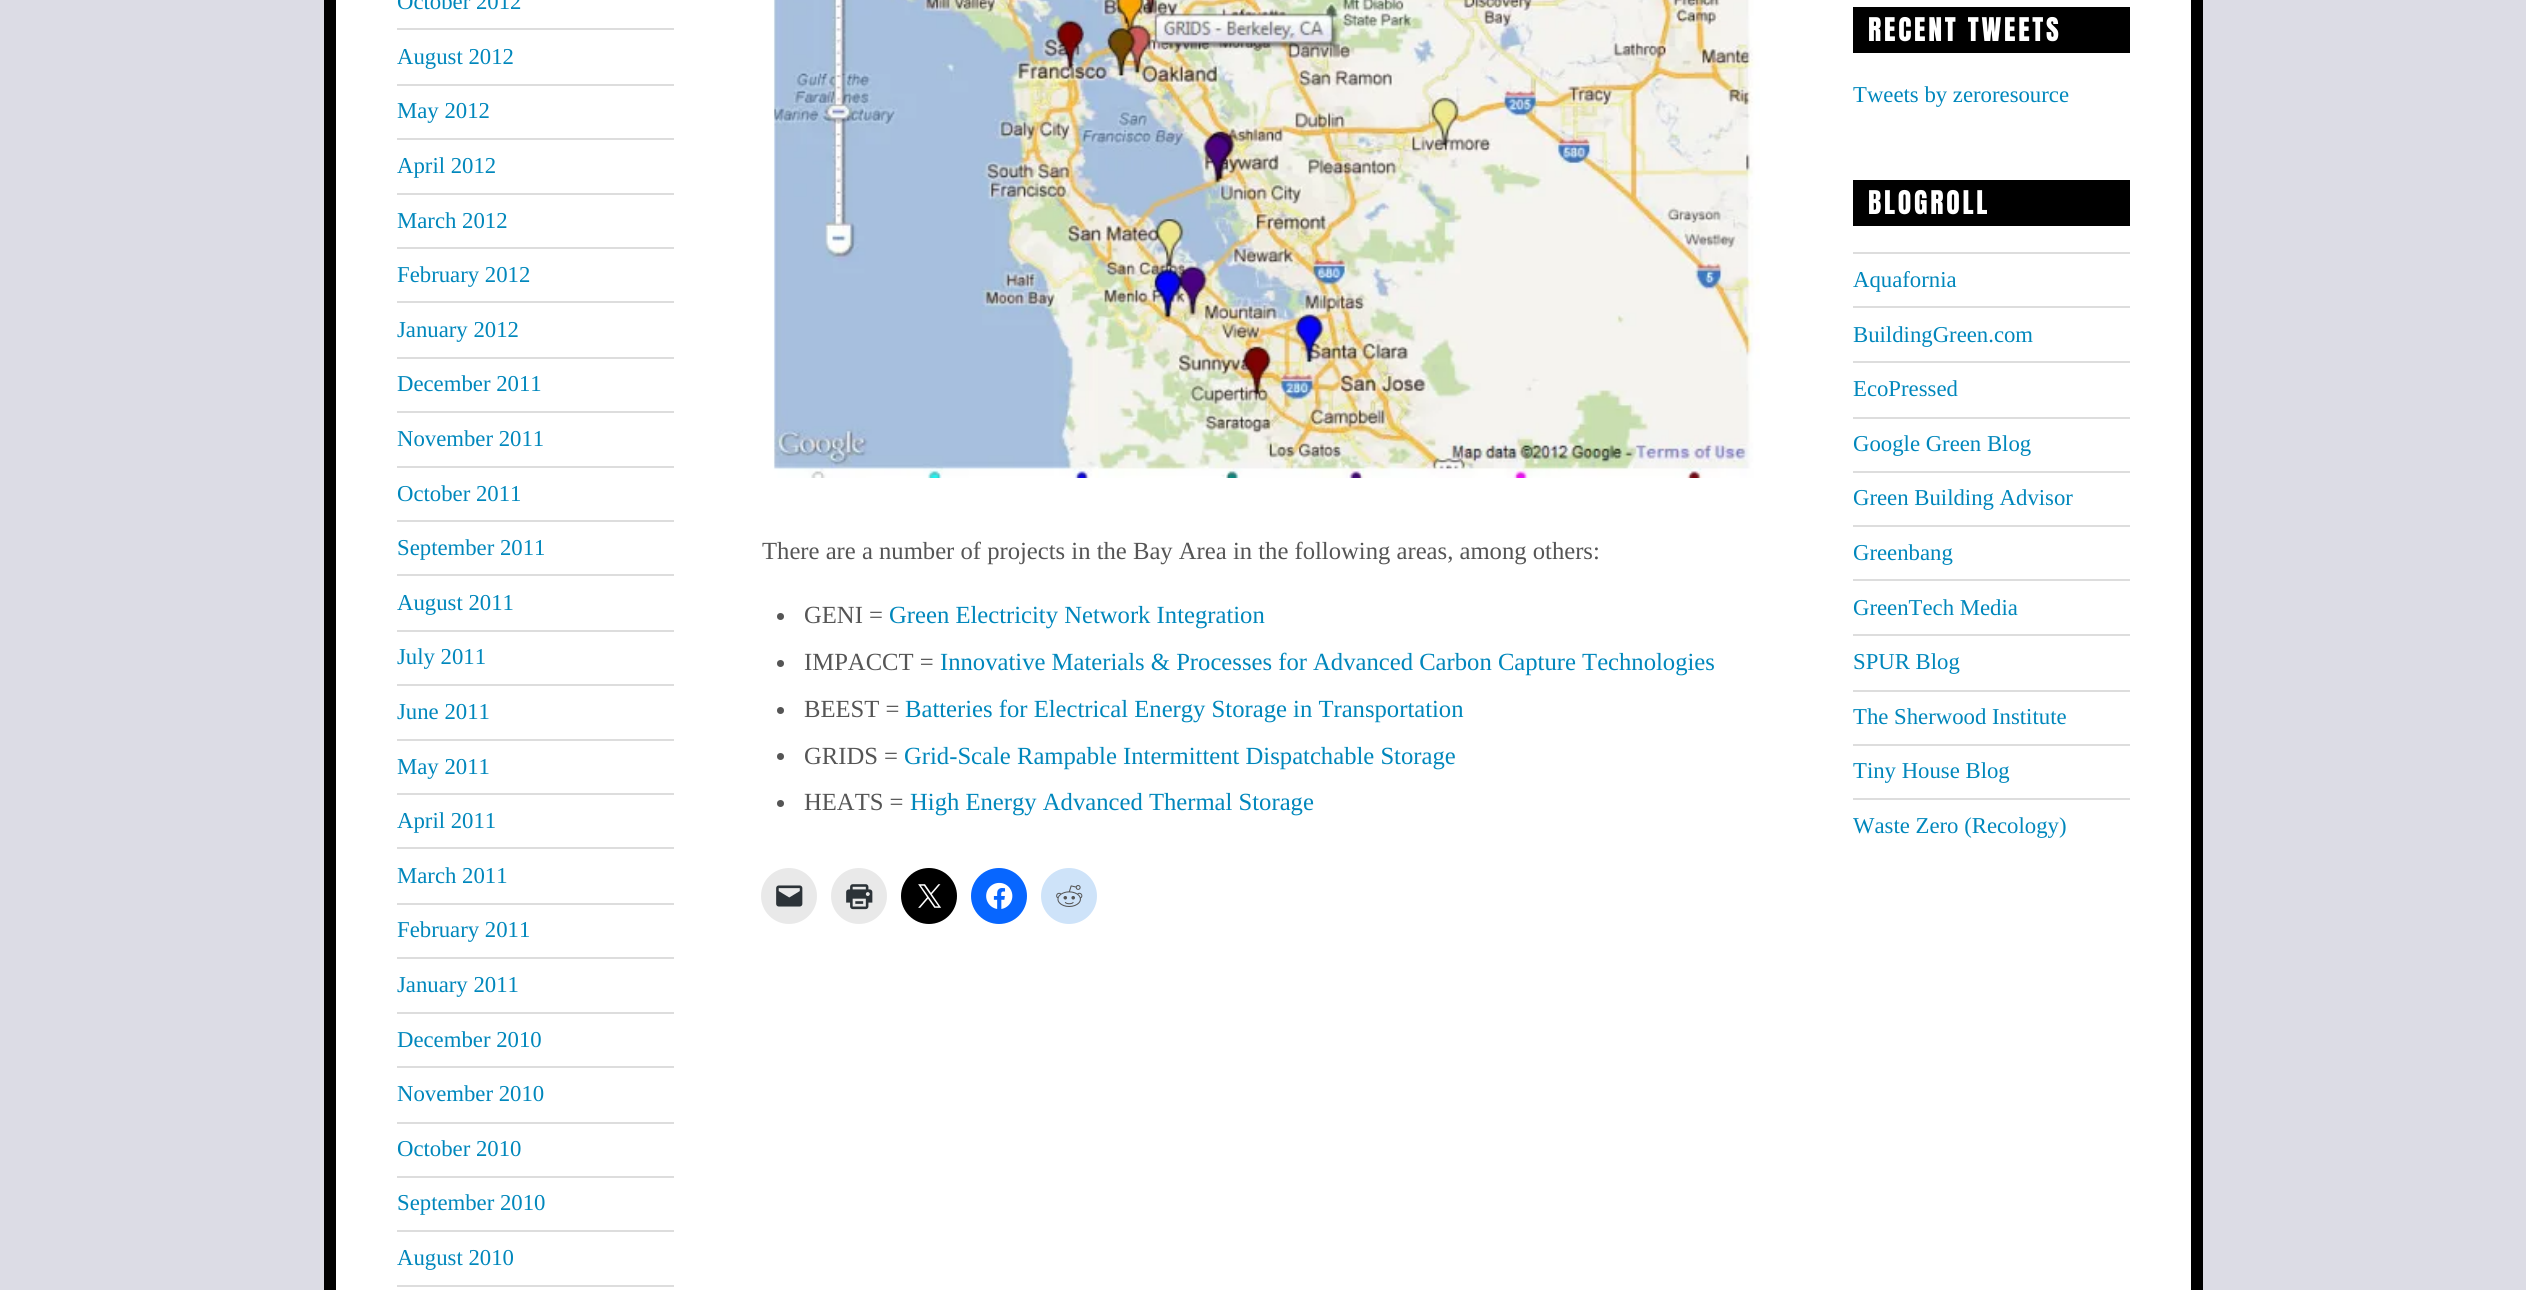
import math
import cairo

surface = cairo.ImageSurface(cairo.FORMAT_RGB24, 2526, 1290)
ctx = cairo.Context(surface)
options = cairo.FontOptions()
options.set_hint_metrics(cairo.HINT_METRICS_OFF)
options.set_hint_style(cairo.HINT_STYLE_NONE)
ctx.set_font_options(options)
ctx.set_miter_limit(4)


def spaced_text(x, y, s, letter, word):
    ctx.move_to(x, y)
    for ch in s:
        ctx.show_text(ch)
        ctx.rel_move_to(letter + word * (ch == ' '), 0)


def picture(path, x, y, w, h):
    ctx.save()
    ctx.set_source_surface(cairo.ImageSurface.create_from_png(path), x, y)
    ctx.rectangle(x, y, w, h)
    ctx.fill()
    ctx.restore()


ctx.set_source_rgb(0.863, 0.863, 0.898)
ctx.paint()
ctx.set_source_rgb(1, 1, 1)
ctx.rectangle(330, -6, 1867, 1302)
ctx.fill_preserve()
ctx.set_source_rgb(0, 0, 0)
ctx.set_line_width(12)
ctx.stroke()
ctx.select_font_face("Liberation Serif")
ctx.set_font_size(22.75)
ctx.set_source_rgb(0, 0.529, 0.737)
ctx.move_to(397, 9)
ctx.show_text("October 2012")
ctx.set_source_rgb(0.867, 0.867, 0.867)
ctx.rectangle(397, 28, 277, 2)
ctx.fill()
ctx.set_source_rgb(0, 0.529, 0.737)
ctx.move_to(397, 64)
ctx.show_text("August 2012")
ctx.set_source_rgb(0.867, 0.867, 0.867)
ctx.rectangle(397, 84, 277, 2)
ctx.fill()
ctx.set_source_rgb(0, 0.529, 0.737)
ctx.move_to(397, 118)
ctx.show_text("May 2012")
ctx.set_source_rgb(0.867, 0.867, 0.867)
ctx.rectangle(397, 138, 277, 2)
ctx.fill()
ctx.set_source_rgb(0, 0.529, 0.737)
ctx.move_to(397, 173)
ctx.show_text("April 2012")
ctx.set_source_rgb(0.867, 0.867, 0.867)
ctx.rectangle(397, 193, 277, 2)
ctx.fill()
ctx.set_source_rgb(0, 0.529, 0.737)
ctx.move_to(397, 228)
ctx.show_text("March 2012")
ctx.set_source_rgb(0.867, 0.867, 0.867)
ctx.rectangle(397, 247, 277, 2)
ctx.fill()
ctx.set_source_rgb(0, 0.529, 0.737)
ctx.move_to(397, 282)
ctx.show_text("February 2012")
ctx.set_source_rgb(0.867, 0.867, 0.867)
ctx.rectangle(397, 301, 277, 2)
ctx.fill()
ctx.set_source_rgb(0, 0.529, 0.737)
ctx.move_to(397, 337)
ctx.show_text("January 2012")
ctx.set_source_rgb(0.867, 0.867, 0.867)
ctx.rectangle(397, 357, 277, 2)
ctx.fill()
ctx.set_source_rgb(0, 0.529, 0.737)
ctx.move_to(397, 391)
ctx.show_text("December 2011")
ctx.set_source_rgb(0.867, 0.867, 0.867)
ctx.rectangle(397, 411, 277, 2)
ctx.fill()
ctx.set_source_rgb(0, 0.529, 0.737)
ctx.move_to(397, 446)
ctx.show_text("November 2011")
ctx.set_source_rgb(0.867, 0.867, 0.867)
ctx.rectangle(397, 466, 277, 2)
ctx.fill()
ctx.set_source_rgb(0, 0.529, 0.737)
ctx.move_to(397, 501)
ctx.show_text("October 2011")
ctx.set_source_rgb(0.867, 0.867, 0.867)
ctx.rectangle(397, 520, 277, 2)
ctx.fill()
ctx.set_source_rgb(0, 0.529, 0.737)
ctx.move_to(397, 555)
ctx.show_text("September 2011")
ctx.set_source_rgb(0.867, 0.867, 0.867)
ctx.rectangle(397, 574, 277, 2)
ctx.fill()
ctx.set_source_rgb(0, 0.529, 0.737)
ctx.move_to(397, 610)
ctx.show_text("August 2011")
ctx.set_source_rgb(0.867, 0.867, 0.867)
ctx.rectangle(397, 630, 277, 2)
ctx.fill()
ctx.set_source_rgb(0, 0.529, 0.737)
ctx.move_to(397, 664)
ctx.show_text("July 2011")
ctx.set_source_rgb(0.867, 0.867, 0.867)
ctx.rectangle(397, 684, 277, 2)
ctx.fill()
ctx.set_source_rgb(0, 0.529, 0.737)
ctx.move_to(397, 719)
ctx.show_text("June 2011")
ctx.set_source_rgb(0.867, 0.867, 0.867)
ctx.rectangle(397, 739, 277, 2)
ctx.fill()
ctx.set_source_rgb(0, 0.529, 0.737)
ctx.move_to(397, 774)
ctx.show_text("May 2011")
ctx.set_source_rgb(0.867, 0.867, 0.867)
ctx.rectangle(397, 793, 277, 2)
ctx.fill()
ctx.set_source_rgb(0, 0.529, 0.737)
ctx.move_to(397, 828)
ctx.show_text("April 2011")
ctx.set_source_rgb(0.867, 0.867, 0.867)
ctx.rectangle(397, 847, 277, 2)
ctx.fill()
ctx.set_source_rgb(0, 0.529, 0.737)
ctx.move_to(397, 883)
ctx.show_text("March 2011")
ctx.set_source_rgb(0.867, 0.867, 0.867)
ctx.rectangle(397, 903, 277, 2)
ctx.fill()
ctx.set_source_rgb(0, 0.529, 0.737)
ctx.move_to(397, 937)
ctx.show_text("February 2011")
ctx.set_source_rgb(0.867, 0.867, 0.867)
ctx.rectangle(397, 957, 277, 2)
ctx.fill()
ctx.set_source_rgb(0, 0.529, 0.737)
ctx.move_to(397, 992)
ctx.show_text("January 2011")
ctx.set_source_rgb(0.867, 0.867, 0.867)
ctx.rectangle(397, 1012, 277, 2)
ctx.fill()
ctx.set_source_rgb(0, 0.529, 0.737)
ctx.move_to(397, 1047)
ctx.show_text("December 2010")
ctx.set_source_rgb(0.867, 0.867, 0.867)
ctx.rectangle(397, 1066, 277, 2)
ctx.fill()
ctx.set_source_rgb(0, 0.529, 0.737)
ctx.move_to(397, 1101)
ctx.show_text("November 2010")
ctx.set_source_rgb(0.867, 0.867, 0.867)
ctx.rectangle(397, 1122, 277, 2)
ctx.fill()
ctx.set_source_rgb(0, 0.529, 0.737)
ctx.move_to(397, 1156)
ctx.show_text("October 2010")
ctx.set_source_rgb(0.867, 0.867, 0.867)
ctx.rectangle(397, 1176, 277, 2)
ctx.fill()
ctx.set_source_rgb(0, 0.529, 0.737)
ctx.move_to(397, 1210)
ctx.show_text("September 2010")
ctx.set_source_rgb(0.867, 0.867, 0.867)
ctx.rectangle(397, 1230, 277, 2)
ctx.fill()
ctx.set_source_rgb(0, 0.529, 0.737)
ctx.move_to(397, 1265)
ctx.show_text("August 2010")
ctx.set_source_rgb(0.867, 0.867, 0.867)
ctx.rectangle(397, 1285, 277, 2)
ctx.fill()
picture("img1.png", 773, 0, 987, 478)
ctx.set_font_size(24.65)
ctx.set_source_rgb(0.333, 0.333, 0.333)
ctx.move_to(762, 559)
ctx.show_text("There are a number of projects in the Bay Area in the following areas, among others:")
ctx.new_path()
ctx.arc(780.5, 616.5, 3.5, 0, 2 * math.pi)
ctx.fill()
ctx.move_to(804, 623)
ctx.show_text("GENI =")
ctx.set_source_rgb(0, 0.529, 0.737)
ctx.move_to(889, 623)
ctx.show_text("Green Electricity Network Integration")
ctx.set_source_rgb(0.333, 0.333, 0.333)
ctx.new_path()
ctx.arc(780.5, 663.5, 3.5, 0, 2 * math.pi)
ctx.fill()
ctx.move_to(804, 670)
ctx.show_text("IMPACCT =")
ctx.set_source_rgb(0, 0.529, 0.737)
ctx.move_to(940, 670)
ctx.show_text("Innovative Materials & Processes for Advanced Carbon Capture Technologies")
ctx.set_source_rgb(0.333, 0.333, 0.333)
ctx.new_path()
ctx.arc(780.5, 710.5, 3.5, 0, 2 * math.pi)
ctx.fill()
ctx.move_to(804, 717)
ctx.show_text("BEEST =")
ctx.set_source_rgb(0, 0.529, 0.737)
ctx.move_to(905, 717)
ctx.show_text("Batteries for Electrical Energy Storage in Transportation")
ctx.set_source_rgb(0.333, 0.333, 0.333)
ctx.new_path()
ctx.arc(780.5, 756.5, 3.5, 0, 2 * math.pi)
ctx.fill()
ctx.move_to(804, 764)
ctx.show_text("GRIDS =")
ctx.set_source_rgb(0, 0.529, 0.737)
ctx.move_to(904, 764)
ctx.show_text("Grid-Scale Rampable Intermittent Dispatchable Storage")
ctx.set_source_rgb(0.333, 0.333, 0.333)
ctx.new_path()
ctx.arc(780.5, 803.5, 3.5, 0, 2 * math.pi)
ctx.fill()
ctx.move_to(804, 810)
ctx.show_text("HEATS =")
ctx.set_source_rgb(0, 0.529, 0.737)
ctx.move_to(910, 810)
ctx.show_text("High Energy Advanced Thermal Storage")
ctx.set_source_rgb(0.914, 0.914, 0.914)
ctx.new_path()
ctx.arc(789, 896, 28, 0, 2 * math.pi)
ctx.fill()
picture("img2.png", 776, 885, 27, 22)
ctx.arc(859, 896, 28, 0, 2 * math.pi)
ctx.fill()
picture("img3.png", 846, 884, 27, 26)
ctx.set_source_rgb(0, 0, 0)
ctx.arc(929, 896, 28, 0, 2 * math.pi)
ctx.fill()
picture("img4.png", 918, 884, 24, 24)
ctx.set_source_rgb(0.031, 0.4, 1)
ctx.arc(999, 896, 28, 0, 2 * math.pi)
ctx.fill()
picture("img5.png", 986, 882, 27, 27)
ctx.set_source_rgb(0.808, 0.89, 0.973)
ctx.arc(1069, 896, 28, 0, 2 * math.pi)
ctx.fill()
picture("img6.png", 1056, 885, 27, 22)
ctx.set_source_rgb(0, 0, 0)
ctx.rectangle(1853, 7, 277, 46)
ctx.fill()
ctx.select_font_face("Anton")
ctx.set_font_size(27.75)
ctx.set_source_rgb(1, 1, 1)
spaced_text(1868, 41, "RECENT TWEETS", 2.75, 0)
ctx.select_font_face("Liberation Serif")
ctx.set_font_size(22.75)
ctx.set_source_rgb(0, 0.529, 0.737)
ctx.move_to(1853, 102)
ctx.show_text("Tweets by zeroresource")
ctx.set_source_rgb(0, 0, 0)
ctx.rectangle(1853, 180, 277, 46)
ctx.fill()
ctx.select_font_face("Anton")
ctx.set_font_size(27.75)
ctx.set_source_rgb(1, 1, 1)
spaced_text(1868, 214, "BLOGROLL", 2.75, 0)
ctx.set_source_rgb(0.867, 0.867, 0.867)
ctx.rectangle(1853, 252, 277, 2)
ctx.fill()
ctx.select_font_face("Liberation Serif")
ctx.set_font_size(22.75)
ctx.set_source_rgb(0, 0.529, 0.737)
ctx.move_to(1853, 287)
ctx.show_text("Aquafornia")
ctx.set_source_rgb(0.867, 0.867, 0.867)
ctx.rectangle(1853, 306, 277, 2)
ctx.fill()
ctx.set_source_rgb(0, 0.529, 0.737)
ctx.move_to(1853, 342)
ctx.show_text("BuildingGreen.com")
ctx.set_source_rgb(0.867, 0.867, 0.867)
ctx.rectangle(1853, 361, 277, 2)
ctx.fill()
ctx.set_source_rgb(0, 0.529, 0.737)
ctx.move_to(1853, 396)
ctx.show_text("EcoPressed")
ctx.set_source_rgb(0.867, 0.867, 0.867)
ctx.rectangle(1853, 417, 277, 2)
ctx.fill()
ctx.set_source_rgb(0, 0.529, 0.737)
ctx.move_to(1853, 451)
ctx.show_text("Google Green Blog")
ctx.set_source_rgb(0.867, 0.867, 0.867)
ctx.rectangle(1853, 471, 277, 2)
ctx.fill()
ctx.set_source_rgb(0, 0.529, 0.737)
ctx.move_to(1853, 505)
ctx.show_text("Green Building Advisor")
ctx.set_source_rgb(0.867, 0.867, 0.867)
ctx.rectangle(1853, 525, 277, 2)
ctx.fill()
ctx.set_source_rgb(0, 0.529, 0.737)
ctx.move_to(1853, 560)
ctx.show_text("Greenbang")
ctx.set_source_rgb(0.867, 0.867, 0.867)
ctx.rectangle(1853, 579, 277, 2)
ctx.fill()
ctx.set_source_rgb(0, 0.529, 0.737)
ctx.move_to(1853, 615)
ctx.show_text("GreenTech Media")
ctx.set_source_rgb(0.867, 0.867, 0.867)
ctx.rectangle(1853, 634, 277, 2)
ctx.fill()
ctx.set_source_rgb(0, 0.529, 0.737)
ctx.move_to(1853, 669)
ctx.show_text("SPUR Blog")
ctx.set_source_rgb(0.867, 0.867, 0.867)
ctx.rectangle(1853, 690, 277, 2)
ctx.fill()
ctx.set_source_rgb(0, 0.529, 0.737)
ctx.move_to(1853, 724)
ctx.show_text("The Sherwood Institute")
ctx.set_source_rgb(0.867, 0.867, 0.867)
ctx.rectangle(1853, 744, 277, 2)
ctx.fill()
ctx.set_source_rgb(0, 0.529, 0.737)
ctx.move_to(1853, 778)
ctx.show_text("Tiny House Blog")
ctx.set_source_rgb(0.867, 0.867, 0.867)
ctx.rectangle(1853, 798, 277, 2)
ctx.fill()
ctx.set_source_rgb(0, 0.529, 0.737)
ctx.move_to(1853, 833)
ctx.show_text("Waste Zero (Recology)")
surface.write_to_png("page.png")
